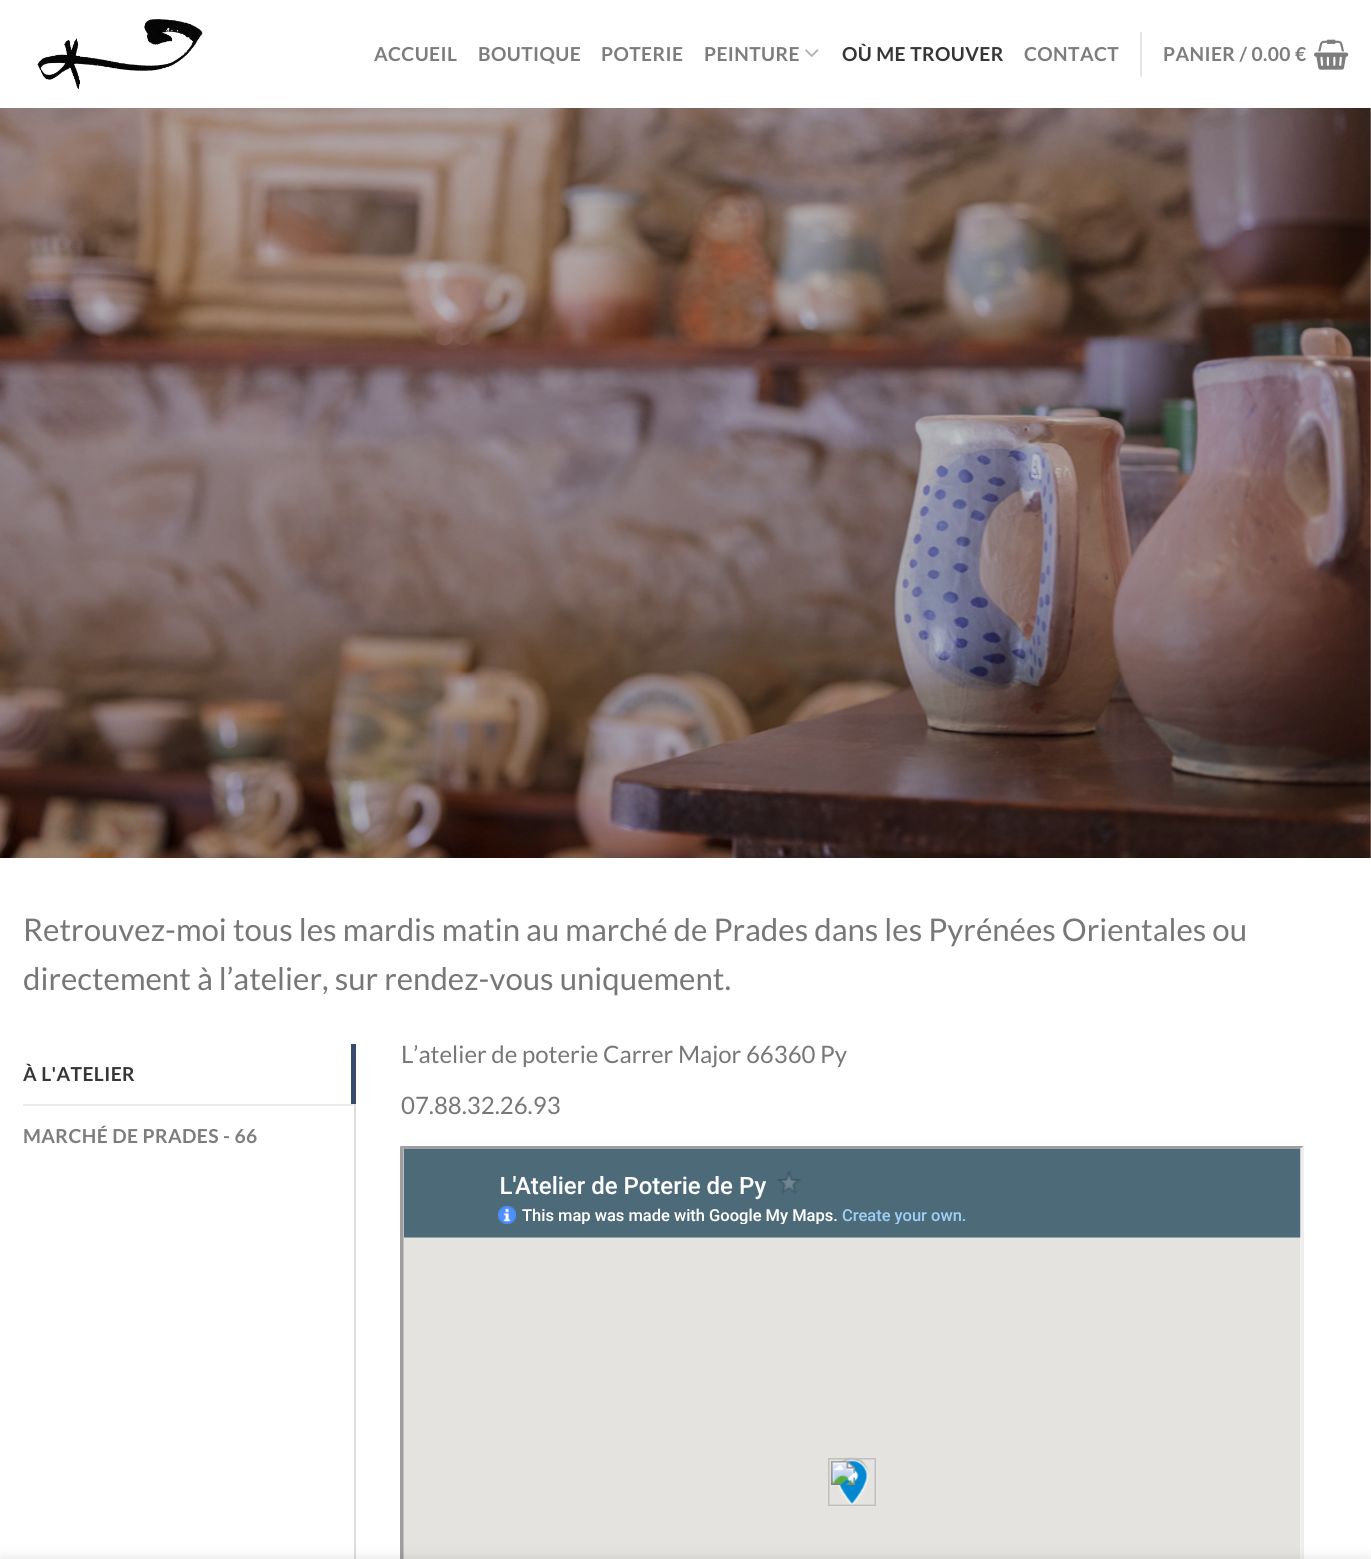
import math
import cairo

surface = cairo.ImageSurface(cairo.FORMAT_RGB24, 1371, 1559)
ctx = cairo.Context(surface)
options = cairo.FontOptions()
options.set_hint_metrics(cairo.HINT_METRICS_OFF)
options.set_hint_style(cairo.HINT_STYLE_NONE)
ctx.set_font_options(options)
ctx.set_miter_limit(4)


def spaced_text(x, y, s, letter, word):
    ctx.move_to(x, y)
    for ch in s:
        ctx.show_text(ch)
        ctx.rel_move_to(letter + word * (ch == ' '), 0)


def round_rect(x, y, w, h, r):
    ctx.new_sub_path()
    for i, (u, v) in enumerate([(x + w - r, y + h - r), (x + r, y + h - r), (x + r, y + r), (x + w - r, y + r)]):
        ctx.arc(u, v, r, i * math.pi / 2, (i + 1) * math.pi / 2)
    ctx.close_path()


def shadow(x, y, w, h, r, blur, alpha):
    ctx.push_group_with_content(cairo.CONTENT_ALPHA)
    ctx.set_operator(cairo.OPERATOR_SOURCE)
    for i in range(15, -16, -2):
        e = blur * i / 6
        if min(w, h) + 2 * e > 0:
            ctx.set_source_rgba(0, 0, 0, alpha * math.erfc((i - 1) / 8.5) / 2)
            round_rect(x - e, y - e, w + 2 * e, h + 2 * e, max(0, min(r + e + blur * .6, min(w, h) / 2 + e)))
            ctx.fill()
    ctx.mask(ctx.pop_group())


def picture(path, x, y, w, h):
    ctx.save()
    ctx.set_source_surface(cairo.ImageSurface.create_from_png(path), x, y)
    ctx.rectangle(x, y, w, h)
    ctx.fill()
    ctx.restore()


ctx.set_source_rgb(1, 1, 1)
ctx.paint()
picture("img1.png", 37, 19, 166, 70)
ctx.select_font_face("Lato", cairo.FONT_SLANT_NORMAL, cairo.FONT_WEIGHT_BOLD)
ctx.set_font_size(19.25)
ctx.set_source_rgb(0.49, 0.49, 0.49)
spaced_text(374, 61, "ACCUEIL", 0.4, 0)
spaced_text(478, 61, "BOUTIQUE", 0.4, 0)
spaced_text(601, 61, "POTERIE", 0.4, 0)
spaced_text(704, 61, "PEINTURE", 0.4, 0)
picture("img2.png", 805, 49, 14, 8)
ctx.set_source_rgb(0.212, 0.212, 0.212)
spaced_text(842, 61, "OÙ ME TROUVER", 0.4, 0)
ctx.set_source_rgb(0.49, 0.49, 0.49)
spaced_text(1024, 61, "CONTACT", 0.4, 0)
ctx.set_source_rgb(0.902, 0.902, 0.902)
ctx.rectangle(1140, 32, 2, 45)
ctx.fill()
ctx.set_source_rgb(0.49, 0.49, 0.49)
spaced_text(1163, 61, "PANIER / 0.00 €", 0.4, 0)
picture("img3.png", 1314, 39, 35, 31)
picture("img4.png", 0, 108, 1371, 750)
ctx.select_font_face("Lato")
ctx.set_font_size(31.2)
ctx.set_source_rgb(0.467, 0.467, 0.467)
ctx.move_to(23, 941)
ctx.show_text("Retrouvez-moi tous les mardis matin au marché de Prades dans les Pyrénées Orientales ou")
ctx.move_to(23, 990)
ctx.show_text("directement à l’atelier, sur rendez-vous uniquement.")
ctx.select_font_face("Lato", cairo.FONT_SLANT_NORMAL, cairo.FONT_WEIGHT_BOLD)
ctx.set_font_size(19.25)
ctx.set_source_rgb(0.212, 0.212, 0.212)
spaced_text(23, 1081, "À L'ATELIER", 0.4, 0)
ctx.set_source_rgb(0.227, 0.298, 0.431)
ctx.rectangle(351, 1044, 5, 60)
ctx.fill()
ctx.set_source_rgb(0.925, 0.925, 0.925)
ctx.rectangle(23, 1104, 331, 2)
ctx.fill()
ctx.set_source_rgb(0.49, 0.49, 0.49)
spaced_text(23, 1143, "MARCHÉ DE PRADES - 66", 0.4, 0)
ctx.set_source_rgb(0.867, 0.867, 0.867)
ctx.rectangle(354, 1104, 2, 455)
ctx.fill()
ctx.select_font_face("Lato")
ctx.set_font_size(24)
ctx.set_source_rgb(0.467, 0.467, 0.467)
ctx.move_to(401, 1063)
ctx.show_text("L’atelier de poterie Carrer Major 66360 Py")
ctx.move_to(401, 1114)
ctx.show_text("07.88.32.26.93")
ctx.set_source_rgb(0.624, 0.624, 0.624)
ctx.new_path()
ctx.move_to(400, 1146)
ctx.line_to(1304, 1146)
ctx.line_to(1300, 1149)
ctx.line_to(404, 1149)
ctx.close_path()
ctx.fill()
ctx.new_path()
ctx.move_to(400, 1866)
ctx.line_to(400, 1146)
ctx.line_to(404, 1149)
ctx.line_to(404, 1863)
ctx.close_path()
ctx.fill()
ctx.set_source_rgb(0.933, 0.933, 0.933)
ctx.new_path()
ctx.move_to(1304, 1146)
ctx.line_to(1304, 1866)
ctx.line_to(1300, 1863)
ctx.line_to(1300, 1149)
ctx.close_path()
ctx.fill()
picture("img5.png", 403, 1149, 898, 410)
ctx.set_source_rgb(0, 0, 0)
shadow(0, 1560, 1371, 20, 0, 7, 0.14)
surface.write_to_png("page.png")
